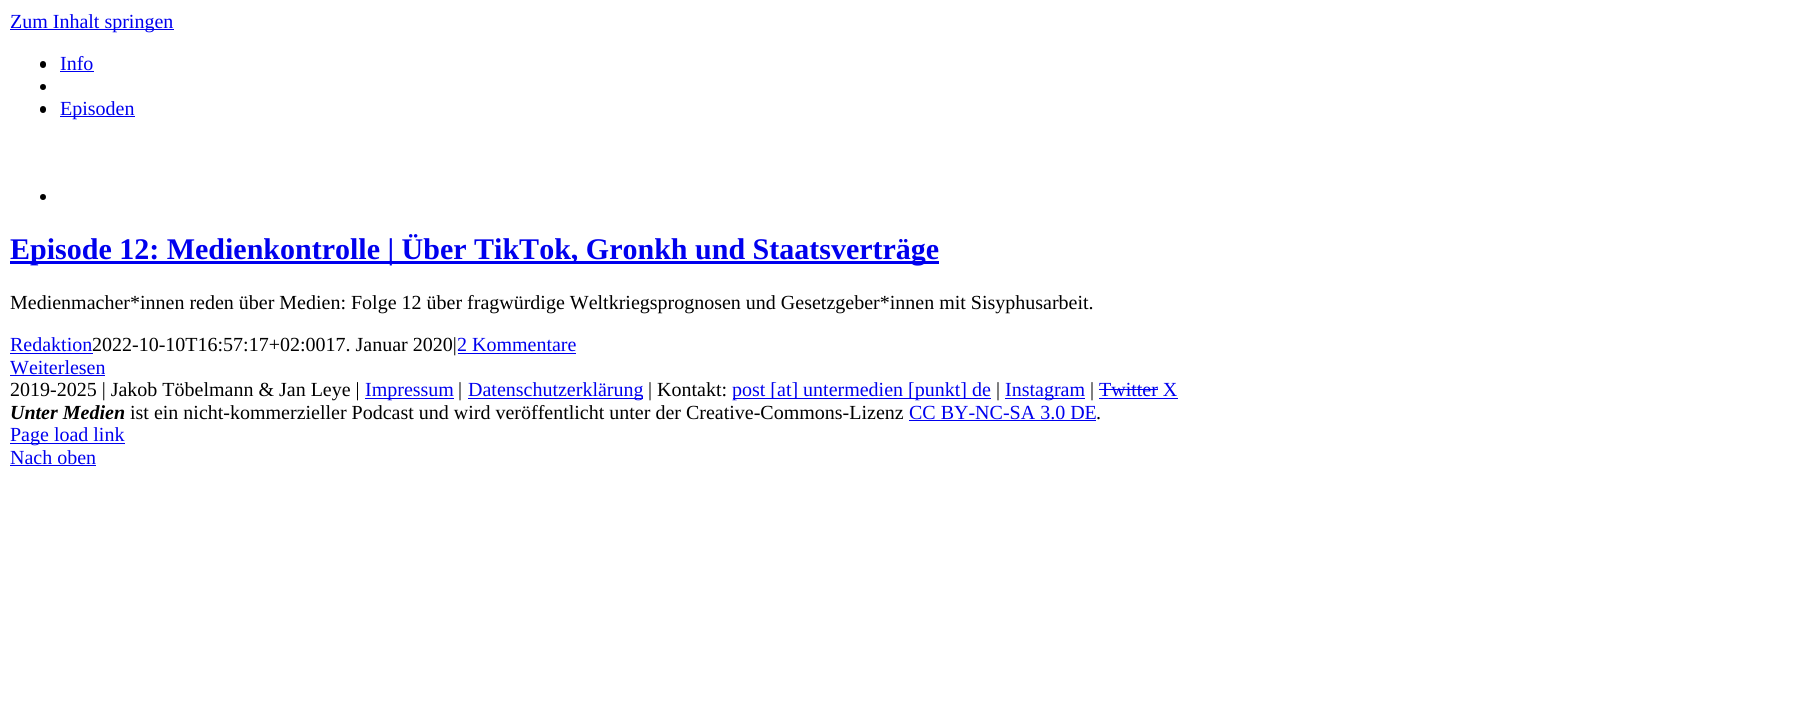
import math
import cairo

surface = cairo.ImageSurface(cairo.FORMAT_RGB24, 1818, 716)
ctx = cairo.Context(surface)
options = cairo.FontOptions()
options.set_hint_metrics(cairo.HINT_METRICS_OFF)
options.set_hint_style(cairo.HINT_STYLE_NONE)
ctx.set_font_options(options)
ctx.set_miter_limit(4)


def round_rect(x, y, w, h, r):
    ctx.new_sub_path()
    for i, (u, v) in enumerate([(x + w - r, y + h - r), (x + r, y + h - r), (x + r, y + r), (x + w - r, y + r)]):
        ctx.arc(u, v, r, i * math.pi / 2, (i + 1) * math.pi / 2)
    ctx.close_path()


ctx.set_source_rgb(1, 1, 1)
ctx.paint()
ctx.set_source_rgb(0, 0, 0.933)
ctx.rectangle(10, 29, 164, 1)
ctx.fill()
ctx.select_font_face("Liberation Serif")
ctx.set_font_size(20)
ctx.move_to(10, 28)
ctx.show_text("Zum Inhalt springen")
ctx.set_source_rgb(0, 0, 0)
round_rect(40, 61, 6, 7, 3)
ctx.fill()
ctx.set_source_rgb(0, 0, 0.933)
ctx.move_to(60, 70)
ctx.show_text("Info")
ctx.rectangle(60, 71, 34, 1)
ctx.fill()
ctx.set_source_rgb(0, 0, 0)
ctx.arc(43, 87, 3, 0, 2 * math.pi)
ctx.fill()
round_rect(40, 106, 6, 7, 3)
ctx.fill()
ctx.set_source_rgb(0, 0, 0.933)
ctx.rectangle(60, 116, 75, 1)
ctx.fill()
ctx.move_to(60, 115)
ctx.show_text("Episoden")
ctx.set_source_rgb(0, 0, 0)
ctx.new_path()
ctx.arc(43, 197, 3, 0, 2 * math.pi)
ctx.fill()
ctx.set_source_rgb(0, 0, 0.933)
ctx.rectangle(10, 261, 929, 3)
ctx.fill()
ctx.select_font_face("Liberation Serif", cairo.FONT_SLANT_NORMAL, cairo.FONT_WEIGHT_BOLD)
ctx.set_font_size(30)
ctx.move_to(10, 259)
ctx.show_text("Episode 12: Medienkontrolle | Über TikTok, Gronkh und Staatsverträge")
ctx.select_font_face("Liberation Serif")
ctx.set_font_size(20)
ctx.set_source_rgb(0, 0, 0)
ctx.move_to(10, 309)
ctx.show_text("Medienmacher*innen reden über Medien: Folge 12 über fragwürdige Weltkriegsprognosen und Gesetzgeber*innen mit Sisyphusarbeit.")
ctx.set_source_rgb(0, 0, 0.933)
ctx.move_to(10, 351)
ctx.show_text("Redaktion")
ctx.rectangle(10, 353, 83, 1)
ctx.fill()
ctx.set_source_rgb(0, 0, 0)
ctx.move_to(92, 351)
ctx.show_text("2022-10-10T16:57:17+02:0017. Januar 2020|")
ctx.set_source_rgb(0, 0, 0.933)
ctx.move_to(457, 351)
ctx.show_text("2 Kommentare")
ctx.rectangle(458, 353, 118, 1)
ctx.fill()
ctx.move_to(10, 374)
ctx.show_text("Weiterlesen")
ctx.rectangle(10, 375, 95, 1)
ctx.fill()
ctx.set_source_rgb(0, 0, 0)
ctx.move_to(10, 396)
ctx.show_text("2019-2025 | Jakob Töbelmann & Jan Leye |")
ctx.set_source_rgb(0, 0, 0.933)
ctx.rectangle(365, 398, 89, 1)
ctx.fill()
ctx.move_to(365, 396)
ctx.show_text("Impressum")
ctx.set_source_rgb(0, 0, 0)
ctx.move_to(458, 396)
ctx.show_text("|")
ctx.set_source_rgb(0, 0, 0.933)
ctx.rectangle(468, 398, 175, 1)
ctx.fill()
ctx.move_to(468, 396)
ctx.show_text("Datenschutzerklärung")
ctx.set_source_rgb(0, 0, 0)
ctx.move_to(648, 396)
ctx.show_text("| Kontakt:")
ctx.set_source_rgb(0, 0, 0.933)
ctx.rectangle(733, 398, 258, 1)
ctx.fill()
ctx.move_to(732, 396)
ctx.show_text("post [at] untermedien [punkt] de")
ctx.set_source_rgb(0, 0, 0)
ctx.move_to(996, 396)
ctx.show_text("|")
ctx.set_source_rgb(0, 0, 0.933)
ctx.rectangle(1005, 398, 80, 1)
ctx.fill()
ctx.move_to(1005, 396)
ctx.show_text("Instagram")
ctx.set_source_rgb(0, 0, 0)
ctx.move_to(1090, 396)
ctx.show_text("|")
ctx.set_source_rgb(0, 0, 0.933)
ctx.move_to(1099, 396)
ctx.show_text("Twitter X")
ctx.rectangle(1099, 398, 79, 1)
ctx.fill()
ctx.rectangle(1099, 389, 59, 1)
ctx.fill()
ctx.select_font_face("Liberation Serif", cairo.FONT_SLANT_ITALIC, cairo.FONT_WEIGHT_BOLD)
ctx.set_source_rgb(0, 0, 0)
ctx.move_to(10, 419)
ctx.show_text("Unter Medien")
ctx.select_font_face("Liberation Serif")
ctx.move_to(130, 419)
ctx.show_text("ist ein nicht-kommerzieller Podcast und wird veröffentlicht unter der Creative-Commons-Lizenz")
ctx.set_source_rgb(0, 0, 0.933)
ctx.move_to(909, 419)
ctx.show_text("CC BY-NC-SA 3.0 DE")
ctx.rectangle(909, 420, 187, 1)
ctx.fill()
ctx.set_source_rgb(0, 0, 0)
ctx.move_to(1096, 419)
ctx.show_text(".")
ctx.set_source_rgb(0, 0, 0.933)
ctx.rectangle(10, 443, 115, 1)
ctx.fill()
ctx.move_to(10, 441)
ctx.show_text("Page load link")
ctx.move_to(10, 464)
ctx.show_text("Nach oben")
ctx.rectangle(10, 465, 86, 1)
ctx.fill()
surface.write_to_png("page.png")
